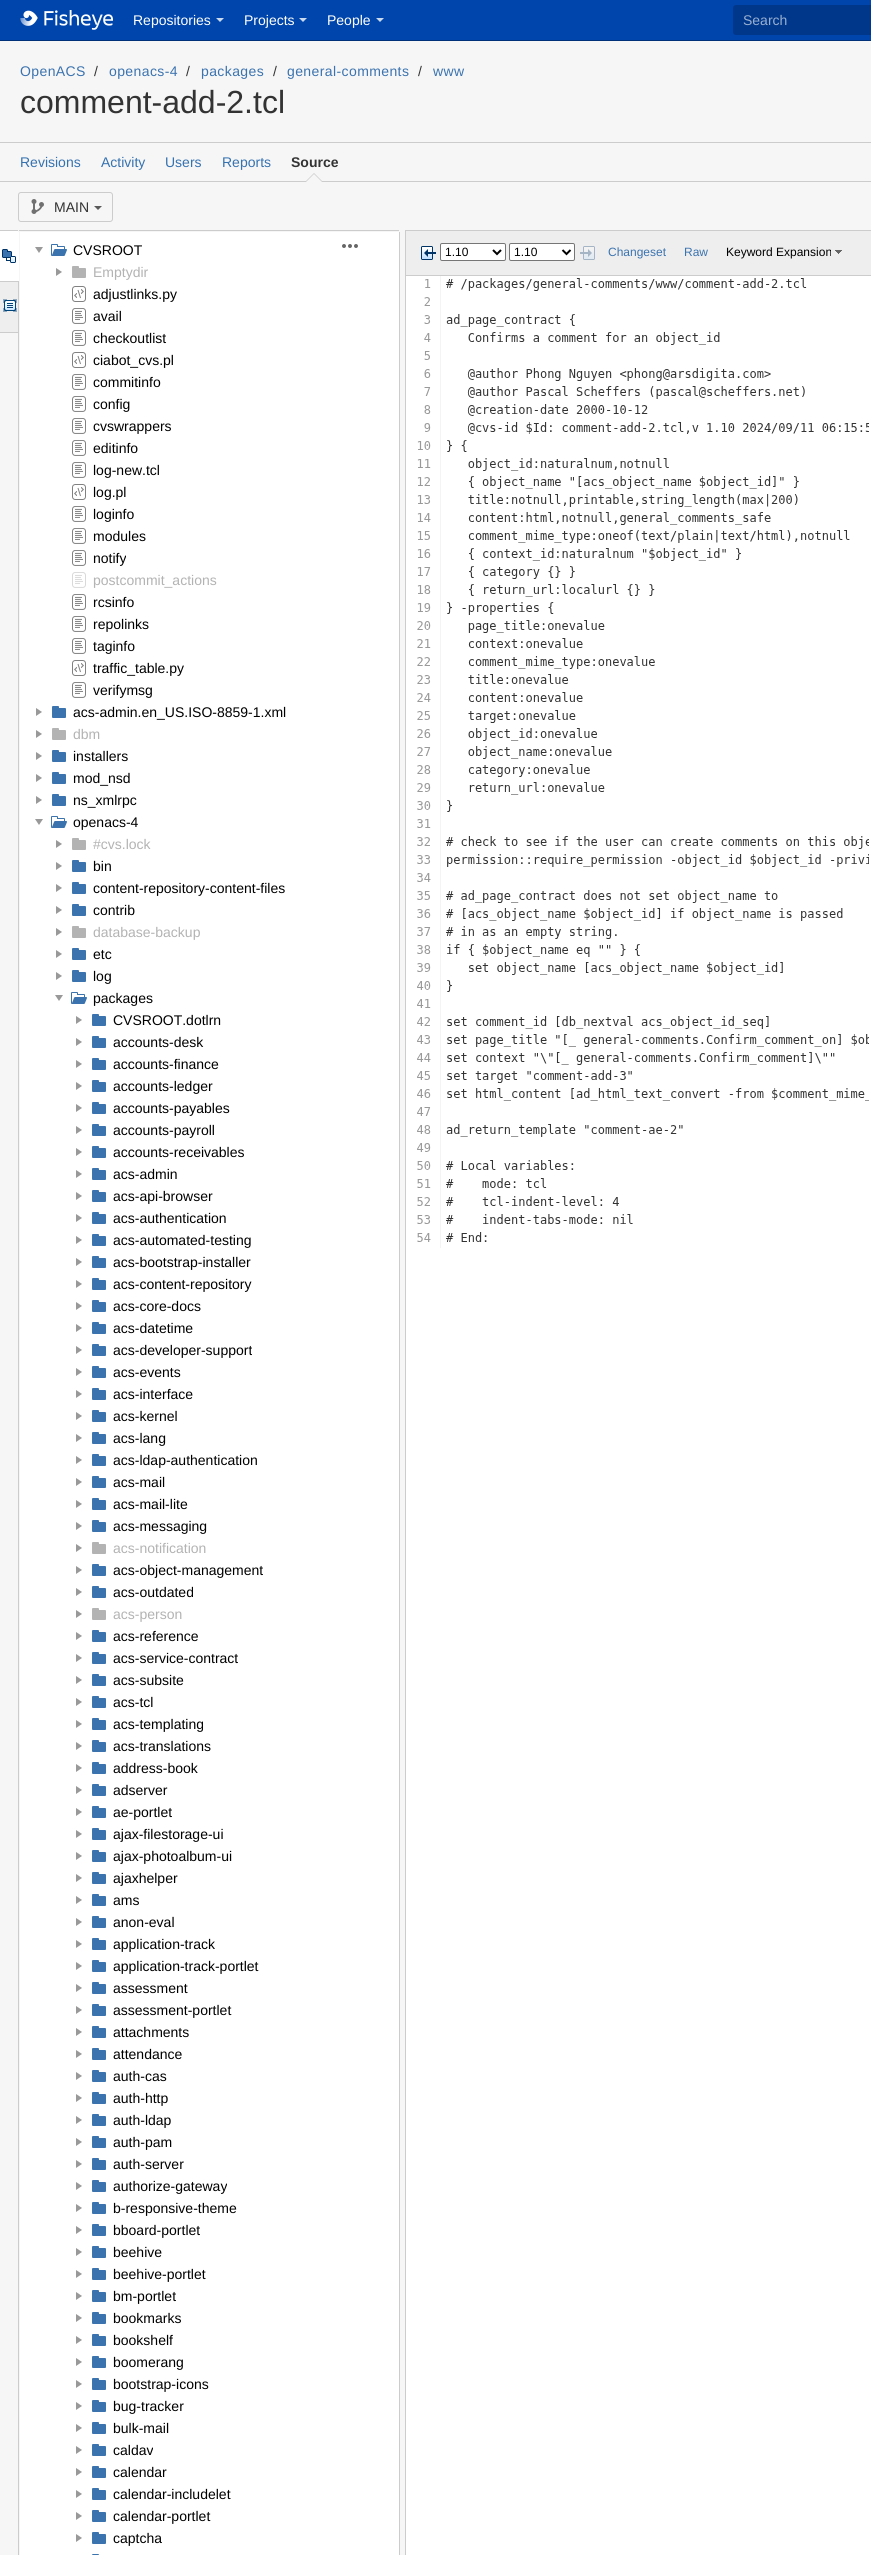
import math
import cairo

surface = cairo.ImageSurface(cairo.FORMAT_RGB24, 871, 2555)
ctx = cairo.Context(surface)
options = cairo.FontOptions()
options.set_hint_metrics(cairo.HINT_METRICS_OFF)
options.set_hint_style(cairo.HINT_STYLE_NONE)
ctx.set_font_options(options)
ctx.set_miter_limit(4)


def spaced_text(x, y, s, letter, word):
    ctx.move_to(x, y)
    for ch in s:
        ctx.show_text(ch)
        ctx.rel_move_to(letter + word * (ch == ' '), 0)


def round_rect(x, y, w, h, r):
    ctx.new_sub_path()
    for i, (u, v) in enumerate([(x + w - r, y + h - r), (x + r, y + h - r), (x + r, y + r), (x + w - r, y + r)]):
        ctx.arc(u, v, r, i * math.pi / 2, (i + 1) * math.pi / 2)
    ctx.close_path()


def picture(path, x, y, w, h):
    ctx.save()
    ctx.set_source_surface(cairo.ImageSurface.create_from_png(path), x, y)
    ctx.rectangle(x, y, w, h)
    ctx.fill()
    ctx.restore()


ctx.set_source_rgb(0.961, 0.961, 0.961)
ctx.paint()
ctx.set_source_rgb(0, 0.271, 0.675)
ctx.rectangle(0, 0, 871, 40)
ctx.fill()
ctx.set_source_rgb(0, 0.192, 0.475)
ctx.rectangle(0, 40, 871, 1)
ctx.fill()
picture("img1.png", 20, 10, 93, 20)
ctx.select_font_face("Liberation Sans")
ctx.set_font_size(14)
ctx.set_source_rgb(1, 1, 1)
ctx.move_to(133, 25)
ctx.show_text("Repositories")
ctx.set_source_rgb(0.8, 0.855, 0.933)
ctx.new_path()
ctx.move_to(216, 18)
ctx.line_to(224, 18)
ctx.line_to(220, 22)
ctx.close_path()
ctx.fill()
ctx.set_source_rgb(1, 1, 1)
ctx.move_to(244, 25)
ctx.show_text("Projects")
ctx.set_source_rgb(0.8, 0.855, 0.933)
ctx.new_path()
ctx.move_to(299, 18)
ctx.line_to(307, 18)
ctx.line_to(303, 22)
ctx.close_path()
ctx.fill()
ctx.set_source_rgb(1, 1, 1)
ctx.move_to(327, 25)
ctx.show_text("People")
ctx.set_source_rgb(0.8, 0.855, 0.933)
ctx.new_path()
ctx.move_to(376, 18)
ctx.line_to(384, 18)
ctx.line_to(380, 22)
ctx.close_path()
ctx.fill()
ctx.set_source_rgb(0, 0.216, 0.541)
round_rect(733, 5, 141, 30, 3)
ctx.fill()
ctx.set_source_rgb(0.6, 0.686, 0.816)
ctx.move_to(743, 25)
ctx.show_text("Search")
ctx.set_source_rgb(0.231, 0.451, 0.686)
spaced_text(20, 76, "OpenACS", 0.4, 0)
ctx.set_source_rgb(0.2, 0.2, 0.2)
spaced_text(94, 76, "/", 0.4, 0)
ctx.set_source_rgb(0.231, 0.451, 0.686)
spaced_text(109, 76, "openacs-4", 0.4, 0)
ctx.set_source_rgb(0.2, 0.2, 0.2)
spaced_text(186, 76, "/", 0.4, 0)
ctx.set_source_rgb(0.231, 0.451, 0.686)
spaced_text(201, 76, "packages", 0.4, 0)
ctx.set_source_rgb(0.2, 0.2, 0.2)
spaced_text(273, 76, "/", 0.4, 0)
ctx.set_source_rgb(0.231, 0.451, 0.686)
spaced_text(287, 76, "general-comments", 0.4, 0)
ctx.set_source_rgb(0.2, 0.2, 0.2)
spaced_text(418, 76, "/", 0.4, 0)
ctx.set_source_rgb(0.231, 0.451, 0.686)
spaced_text(433, 76, "www", 0.4, 0)
ctx.set_font_size(32)
ctx.set_source_rgb(0.2, 0.2, 0.2)
ctx.move_to(20, 113)
ctx.show_text("comment-add-2.tcl")
ctx.set_source_rgb(0.8, 0.8, 0.8)
ctx.rectangle(0, 142, 871, 1)
ctx.fill()
ctx.rectangle(0, 181, 871, 1)
ctx.fill()
ctx.set_font_size(14)
ctx.set_source_rgb(0.208, 0.447, 0.69)
ctx.move_to(20, 167)
ctx.show_text("Revisions")
ctx.move_to(101, 167)
ctx.show_text("Activity")
ctx.move_to(165, 167)
ctx.show_text("Users")
ctx.move_to(222, 167)
ctx.show_text("Reports")
ctx.select_font_face("Liberation Sans", cairo.FONT_SLANT_NORMAL, cairo.FONT_WEIGHT_BOLD)
ctx.set_source_rgb(0.2, 0.2, 0.2)
ctx.move_to(291, 167)
ctx.show_text("Source")
ctx.set_source_rgb(0.8, 0.8, 0.8)
ctx.new_path()
ctx.move_to(322, 181)
ctx.line_to(306, 181)
ctx.line_to(314, 173)
ctx.close_path()
ctx.fill()
ctx.set_source_rgb(0.961, 0.961, 0.961)
ctx.new_path()
ctx.move_to(322, 182)
ctx.line_to(306, 182)
ctx.line_to(314, 174)
ctx.close_path()
ctx.fill()
ctx.set_source_rgb(0.8, 0.8, 0.8)
ctx.rectangle(0, 230, 18, 1)
ctx.fill()
ctx.set_source_rgb(1, 1, 1)
ctx.rectangle(0, 231, 19, 50)
ctx.fill()
picture("img2.png", 2, 249, 14, 14)
ctx.set_source_rgb(0.8, 0.8, 0.8)
ctx.rectangle(0, 281, 19, 1)
ctx.fill()
ctx.set_source_rgb(0.933, 0.933, 0.933)
ctx.rectangle(0, 282, 18, 50)
ctx.fill()
picture("img3.png", 3, 299, 14, 13)
ctx.set_source_rgb(0.8, 0.8, 0.8)
ctx.rectangle(0, 332, 18, 1)
ctx.fill()
ctx.set_source_rgb(1, 1, 1)
ctx.rectangle(20, 232, 379, 2323)
ctx.fill()
ctx.set_source_rgb(0.8, 0.8, 0.8)
ctx.rectangle(399, 232, 1, 2323)
ctx.fill()
ctx.rectangle(18, 282, 1, 2273)
ctx.fill()
ctx.set_source_rgb(0.961, 0.961, 0.961)
ctx.rectangle(18, 231, 1, 1)
ctx.fill()
round_rect(18.5, 192.5, 94, 29, 2.5)
ctx.set_source_rgb(0.8, 0.8, 0.8)
ctx.set_line_width(1)
ctx.stroke()
picture("img4.png", 31, 199, 13, 15)
ctx.select_font_face("Liberation Sans")
ctx.set_source_rgb(0.2, 0.2, 0.2)
ctx.move_to(54, 212)
ctx.show_text("MAIN")
ctx.set_source_rgb(0.353, 0.353, 0.353)
ctx.new_path()
ctx.move_to(94, 206)
ctx.line_to(102, 206)
ctx.line_to(98, 210)
ctx.close_path()
ctx.fill()
ctx.set_source_rgb(0.8, 0.8, 0.8)
ctx.rectangle(19, 230, 380, 1)
ctx.fill()
ctx.set_source_rgb(0.6, 0.6, 0.6)
ctx.new_path()
ctx.move_to(35, 247)
ctx.line_to(43, 247)
ctx.line_to(39, 253)
ctx.close_path()
ctx.fill()
picture("img5.png", 51, 244, 16, 12)
ctx.set_source_rgb(0, 0, 0)
ctx.move_to(73, 255)
ctx.show_text("CVSROOT")
ctx.set_source_rgb(0.6, 0.6, 0.6)
ctx.new_path()
ctx.move_to(56, 276)
ctx.line_to(56, 268)
ctx.line_to(62, 272)
ctx.close_path()
ctx.fill()
picture("img6.png", 72, 266, 14, 12)
ctx.set_source_rgb(0.702, 0.702, 0.702)
ctx.move_to(93, 277)
ctx.show_text("Emptydir")
picture("img7.png", 72, 286, 14, 16)
ctx.set_source_rgb(0, 0, 0)
ctx.move_to(93, 299)
ctx.show_text("adjustlinks.py")
picture("img8.png", 72, 308, 14, 16)
ctx.move_to(93, 321)
ctx.show_text("avail")
picture("img8.png", 72, 330, 14, 16)
ctx.move_to(93, 343)
ctx.show_text("checkoutlist")
picture("img7.png", 72, 352, 14, 16)
ctx.move_to(93, 365)
ctx.show_text("ciabot_cvs.pl")
picture("img8.png", 72, 374, 14, 16)
ctx.move_to(93, 387)
ctx.show_text("commitinfo")
picture("img8.png", 72, 396, 14, 16)
ctx.move_to(93, 409)
ctx.show_text("config")
picture("img8.png", 72, 418, 14, 16)
ctx.move_to(93, 431)
ctx.show_text("cvswrappers")
picture("img8.png", 72, 440, 14, 16)
ctx.move_to(93, 453)
ctx.show_text("editinfo")
picture("img8.png", 72, 462, 14, 16)
ctx.move_to(93, 475)
ctx.show_text("log-new.tcl")
picture("img7.png", 72, 484, 14, 16)
ctx.move_to(93, 497)
ctx.show_text("log.pl")
picture("img8.png", 72, 506, 14, 16)
ctx.move_to(93, 519)
ctx.show_text("loginfo")
picture("img8.png", 72, 528, 14, 16)
ctx.move_to(93, 541)
ctx.show_text("modules")
picture("img8.png", 72, 550, 14, 16)
ctx.move_to(93, 563)
ctx.show_text("notify")
picture("img9.png", 72, 572, 14, 16)
ctx.set_source_rgb(0.702, 0.702, 0.702)
ctx.move_to(93, 585)
ctx.show_text("postcommit_actions")
picture("img8.png", 72, 594, 14, 16)
ctx.set_source_rgb(0, 0, 0)
ctx.move_to(93, 607)
ctx.show_text("rcsinfo")
picture("img8.png", 72, 616, 14, 16)
ctx.move_to(93, 629)
ctx.show_text("repolinks")
picture("img8.png", 72, 638, 14, 16)
ctx.move_to(93, 651)
ctx.show_text("taginfo")
picture("img7.png", 72, 660, 14, 16)
ctx.move_to(93, 673)
ctx.show_text("traffic_table.py")
picture("img8.png", 72, 682, 14, 16)
ctx.move_to(93, 695)
ctx.show_text("verifymsg")
ctx.set_source_rgb(0.6, 0.6, 0.6)
ctx.new_path()
ctx.move_to(36, 716)
ctx.line_to(36, 708)
ctx.line_to(42, 712)
ctx.close_path()
ctx.fill()
picture("img10.png", 52, 706, 14, 12)
ctx.set_source_rgb(0, 0, 0)
ctx.move_to(73, 717)
ctx.show_text("acs-admin.en_US.ISO-8859-1.xml")
ctx.set_source_rgb(0.6, 0.6, 0.6)
ctx.new_path()
ctx.move_to(36, 738)
ctx.line_to(36, 730)
ctx.line_to(42, 734)
ctx.close_path()
ctx.fill()
picture("img6.png", 52, 728, 14, 12)
ctx.set_source_rgb(0.702, 0.702, 0.702)
ctx.move_to(73, 739)
ctx.show_text("dbm")
ctx.set_source_rgb(0.6, 0.6, 0.6)
ctx.new_path()
ctx.move_to(36, 760)
ctx.line_to(36, 752)
ctx.line_to(42, 756)
ctx.close_path()
ctx.fill()
picture("img10.png", 52, 750, 14, 12)
ctx.set_source_rgb(0, 0, 0)
ctx.move_to(73, 761)
ctx.show_text("installers")
ctx.set_source_rgb(0.6, 0.6, 0.6)
ctx.new_path()
ctx.move_to(36, 782)
ctx.line_to(36, 774)
ctx.line_to(42, 778)
ctx.close_path()
ctx.fill()
picture("img10.png", 52, 772, 14, 12)
ctx.set_source_rgb(0, 0, 0)
ctx.move_to(73, 783)
ctx.show_text("mod_nsd")
ctx.set_source_rgb(0.6, 0.6, 0.6)
ctx.new_path()
ctx.move_to(36, 804)
ctx.line_to(36, 796)
ctx.line_to(42, 800)
ctx.close_path()
ctx.fill()
picture("img10.png", 52, 794, 14, 12)
ctx.set_source_rgb(0, 0, 0)
ctx.move_to(73, 805)
ctx.show_text("ns_xmlrpc")
ctx.set_source_rgb(0.6, 0.6, 0.6)
ctx.new_path()
ctx.move_to(35, 819)
ctx.line_to(43, 819)
ctx.line_to(39, 825)
ctx.close_path()
ctx.fill()
picture("img5.png", 51, 816, 16, 12)
ctx.set_source_rgb(0, 0, 0)
ctx.move_to(73, 827)
ctx.show_text("openacs-4")
ctx.set_source_rgb(0.6, 0.6, 0.6)
ctx.new_path()
ctx.move_to(56, 848)
ctx.line_to(56, 840)
ctx.line_to(62, 844)
ctx.close_path()
ctx.fill()
picture("img6.png", 72, 838, 14, 12)
ctx.set_source_rgb(0.702, 0.702, 0.702)
ctx.move_to(93, 849)
ctx.show_text("#cvs.lock")
ctx.set_source_rgb(0.6, 0.6, 0.6)
ctx.new_path()
ctx.move_to(56, 870)
ctx.line_to(56, 862)
ctx.line_to(62, 866)
ctx.close_path()
ctx.fill()
picture("img10.png", 72, 860, 14, 12)
ctx.set_source_rgb(0, 0, 0)
ctx.move_to(93, 871)
ctx.show_text("bin")
ctx.set_source_rgb(0.6, 0.6, 0.6)
ctx.new_path()
ctx.move_to(56, 892)
ctx.line_to(56, 884)
ctx.line_to(62, 888)
ctx.close_path()
ctx.fill()
picture("img10.png", 72, 882, 14, 12)
ctx.set_source_rgb(0, 0, 0)
ctx.move_to(93, 893)
ctx.show_text("content-repository-content-files")
ctx.set_source_rgb(0.6, 0.6, 0.6)
ctx.new_path()
ctx.move_to(56, 914)
ctx.line_to(56, 906)
ctx.line_to(62, 910)
ctx.close_path()
ctx.fill()
picture("img10.png", 72, 904, 14, 12)
ctx.set_source_rgb(0, 0, 0)
ctx.move_to(93, 915)
ctx.show_text("contrib")
ctx.set_source_rgb(0.6, 0.6, 0.6)
ctx.new_path()
ctx.move_to(56, 936)
ctx.line_to(56, 928)
ctx.line_to(62, 932)
ctx.close_path()
ctx.fill()
picture("img6.png", 72, 926, 14, 12)
ctx.set_source_rgb(0.702, 0.702, 0.702)
ctx.move_to(93, 937)
ctx.show_text("database-backup")
ctx.set_source_rgb(0.6, 0.6, 0.6)
ctx.new_path()
ctx.move_to(56, 958)
ctx.line_to(56, 950)
ctx.line_to(62, 954)
ctx.close_path()
ctx.fill()
picture("img10.png", 72, 948, 14, 12)
ctx.set_source_rgb(0, 0, 0)
ctx.move_to(93, 959)
ctx.show_text("etc")
ctx.set_source_rgb(0.6, 0.6, 0.6)
ctx.new_path()
ctx.move_to(56, 980)
ctx.line_to(56, 972)
ctx.line_to(62, 976)
ctx.close_path()
ctx.fill()
picture("img10.png", 72, 970, 14, 12)
ctx.set_source_rgb(0, 0, 0)
ctx.move_to(93, 981)
ctx.show_text("log")
ctx.set_source_rgb(0.6, 0.6, 0.6)
ctx.new_path()
ctx.move_to(55, 995)
ctx.line_to(63, 995)
ctx.line_to(59, 1001)
ctx.close_path()
ctx.fill()
picture("img5.png", 71, 992, 16, 12)
ctx.set_source_rgb(0, 0, 0)
ctx.move_to(93, 1003)
ctx.show_text("packages")
ctx.set_source_rgb(0.6, 0.6, 0.6)
ctx.new_path()
ctx.move_to(76, 1024)
ctx.line_to(76, 1016)
ctx.line_to(82, 1020)
ctx.close_path()
ctx.fill()
picture("img10.png", 92, 1014, 14, 12)
ctx.set_source_rgb(0, 0, 0)
ctx.move_to(113, 1025)
ctx.show_text("CVSROOT.dotlrn")
ctx.set_source_rgb(0.6, 0.6, 0.6)
ctx.new_path()
ctx.move_to(76, 1046)
ctx.line_to(76, 1038)
ctx.line_to(82, 1042)
ctx.close_path()
ctx.fill()
picture("img10.png", 92, 1036, 14, 12)
ctx.set_source_rgb(0, 0, 0)
ctx.move_to(113, 1047)
ctx.show_text("accounts-desk")
ctx.set_source_rgb(0.6, 0.6, 0.6)
ctx.new_path()
ctx.move_to(76, 1068)
ctx.line_to(76, 1060)
ctx.line_to(82, 1064)
ctx.close_path()
ctx.fill()
picture("img10.png", 92, 1058, 14, 12)
ctx.set_source_rgb(0, 0, 0)
ctx.move_to(113, 1069)
ctx.show_text("accounts-finance")
ctx.set_source_rgb(0.6, 0.6, 0.6)
ctx.new_path()
ctx.move_to(76, 1090)
ctx.line_to(76, 1082)
ctx.line_to(82, 1086)
ctx.close_path()
ctx.fill()
picture("img10.png", 92, 1080, 14, 12)
ctx.set_source_rgb(0, 0, 0)
ctx.move_to(113, 1091)
ctx.show_text("accounts-ledger")
ctx.set_source_rgb(0.6, 0.6, 0.6)
ctx.new_path()
ctx.move_to(76, 1112)
ctx.line_to(76, 1104)
ctx.line_to(82, 1108)
ctx.close_path()
ctx.fill()
picture("img10.png", 92, 1102, 14, 12)
ctx.set_source_rgb(0, 0, 0)
ctx.move_to(113, 1113)
ctx.show_text("accounts-payables")
ctx.set_source_rgb(0.6, 0.6, 0.6)
ctx.new_path()
ctx.move_to(76, 1134)
ctx.line_to(76, 1126)
ctx.line_to(82, 1130)
ctx.close_path()
ctx.fill()
picture("img10.png", 92, 1124, 14, 12)
ctx.set_source_rgb(0, 0, 0)
ctx.move_to(113, 1135)
ctx.show_text("accounts-payroll")
ctx.set_source_rgb(0.6, 0.6, 0.6)
ctx.new_path()
ctx.move_to(76, 1156)
ctx.line_to(76, 1148)
ctx.line_to(82, 1152)
ctx.close_path()
ctx.fill()
picture("img10.png", 92, 1146, 14, 12)
ctx.set_source_rgb(0, 0, 0)
ctx.move_to(113, 1157)
ctx.show_text("accounts-receivables")
ctx.set_source_rgb(0.6, 0.6, 0.6)
ctx.new_path()
ctx.move_to(76, 1178)
ctx.line_to(76, 1170)
ctx.line_to(82, 1174)
ctx.close_path()
ctx.fill()
picture("img10.png", 92, 1168, 14, 12)
ctx.set_source_rgb(0, 0, 0)
ctx.move_to(113, 1179)
ctx.show_text("acs-admin")
ctx.set_source_rgb(0.6, 0.6, 0.6)
ctx.new_path()
ctx.move_to(76, 1200)
ctx.line_to(76, 1192)
ctx.line_to(82, 1196)
ctx.close_path()
ctx.fill()
picture("img10.png", 92, 1190, 14, 12)
ctx.set_source_rgb(0, 0, 0)
ctx.move_to(113, 1201)
ctx.show_text("acs-api-browser")
ctx.set_source_rgb(0.6, 0.6, 0.6)
ctx.new_path()
ctx.move_to(76, 1222)
ctx.line_to(76, 1214)
ctx.line_to(82, 1218)
ctx.close_path()
ctx.fill()
picture("img10.png", 92, 1212, 14, 12)
ctx.set_source_rgb(0, 0, 0)
ctx.move_to(113, 1223)
ctx.show_text("acs-authentication")
ctx.set_source_rgb(0.6, 0.6, 0.6)
ctx.new_path()
ctx.move_to(76, 1244)
ctx.line_to(76, 1236)
ctx.line_to(82, 1240)
ctx.close_path()
ctx.fill()
picture("img10.png", 92, 1234, 14, 12)
ctx.set_source_rgb(0, 0, 0)
ctx.move_to(113, 1245)
ctx.show_text("acs-automated-testing")
ctx.set_source_rgb(0.6, 0.6, 0.6)
ctx.new_path()
ctx.move_to(76, 1266)
ctx.line_to(76, 1258)
ctx.line_to(82, 1262)
ctx.close_path()
ctx.fill()
picture("img10.png", 92, 1256, 14, 12)
ctx.set_source_rgb(0, 0, 0)
ctx.move_to(113, 1267)
ctx.show_text("acs-bootstrap-installer")
ctx.set_source_rgb(0.6, 0.6, 0.6)
ctx.new_path()
ctx.move_to(76, 1288)
ctx.line_to(76, 1280)
ctx.line_to(82, 1284)
ctx.close_path()
ctx.fill()
picture("img10.png", 92, 1278, 14, 12)
ctx.set_source_rgb(0, 0, 0)
ctx.move_to(113, 1289)
ctx.show_text("acs-content-repository")
ctx.set_source_rgb(0.6, 0.6, 0.6)
ctx.new_path()
ctx.move_to(76, 1310)
ctx.line_to(76, 1302)
ctx.line_to(82, 1306)
ctx.close_path()
ctx.fill()
picture("img10.png", 92, 1300, 14, 12)
ctx.set_source_rgb(0, 0, 0)
ctx.move_to(113, 1311)
ctx.show_text("acs-core-docs")
ctx.set_source_rgb(0.6, 0.6, 0.6)
ctx.new_path()
ctx.move_to(76, 1332)
ctx.line_to(76, 1324)
ctx.line_to(82, 1328)
ctx.close_path()
ctx.fill()
picture("img10.png", 92, 1322, 14, 12)
ctx.set_source_rgb(0, 0, 0)
ctx.move_to(113, 1333)
ctx.show_text("acs-datetime")
ctx.set_source_rgb(0.6, 0.6, 0.6)
ctx.new_path()
ctx.move_to(76, 1354)
ctx.line_to(76, 1346)
ctx.line_to(82, 1350)
ctx.close_path()
ctx.fill()
picture("img10.png", 92, 1344, 14, 12)
ctx.set_source_rgb(0, 0, 0)
ctx.move_to(113, 1355)
ctx.show_text("acs-developer-support")
ctx.set_source_rgb(0.6, 0.6, 0.6)
ctx.new_path()
ctx.move_to(76, 1376)
ctx.line_to(76, 1368)
ctx.line_to(82, 1372)
ctx.close_path()
ctx.fill()
picture("img10.png", 92, 1366, 14, 12)
ctx.set_source_rgb(0, 0, 0)
ctx.move_to(113, 1377)
ctx.show_text("acs-events")
ctx.set_source_rgb(0.6, 0.6, 0.6)
ctx.new_path()
ctx.move_to(76, 1398)
ctx.line_to(76, 1390)
ctx.line_to(82, 1394)
ctx.close_path()
ctx.fill()
picture("img10.png", 92, 1388, 14, 12)
ctx.set_source_rgb(0, 0, 0)
ctx.move_to(113, 1399)
ctx.show_text("acs-interface")
ctx.set_source_rgb(0.6, 0.6, 0.6)
ctx.new_path()
ctx.move_to(76, 1420)
ctx.line_to(76, 1412)
ctx.line_to(82, 1416)
ctx.close_path()
ctx.fill()
picture("img10.png", 92, 1410, 14, 12)
ctx.set_source_rgb(0, 0, 0)
ctx.move_to(113, 1421)
ctx.show_text("acs-kernel")
ctx.set_source_rgb(0.6, 0.6, 0.6)
ctx.new_path()
ctx.move_to(76, 1442)
ctx.line_to(76, 1434)
ctx.line_to(82, 1438)
ctx.close_path()
ctx.fill()
picture("img10.png", 92, 1432, 14, 12)
ctx.set_source_rgb(0, 0, 0)
ctx.move_to(113, 1443)
ctx.show_text("acs-lang")
ctx.set_source_rgb(0.6, 0.6, 0.6)
ctx.new_path()
ctx.move_to(76, 1464)
ctx.line_to(76, 1456)
ctx.line_to(82, 1460)
ctx.close_path()
ctx.fill()
picture("img10.png", 92, 1454, 14, 12)
ctx.set_source_rgb(0, 0, 0)
ctx.move_to(113, 1465)
ctx.show_text("acs-ldap-authentication")
ctx.set_source_rgb(0.6, 0.6, 0.6)
ctx.new_path()
ctx.move_to(76, 1486)
ctx.line_to(76, 1478)
ctx.line_to(82, 1482)
ctx.close_path()
ctx.fill()
picture("img10.png", 92, 1476, 14, 12)
ctx.set_source_rgb(0, 0, 0)
ctx.move_to(113, 1487)
ctx.show_text("acs-mail")
ctx.set_source_rgb(0.6, 0.6, 0.6)
ctx.new_path()
ctx.move_to(76, 1508)
ctx.line_to(76, 1500)
ctx.line_to(82, 1504)
ctx.close_path()
ctx.fill()
picture("img10.png", 92, 1498, 14, 12)
ctx.set_source_rgb(0, 0, 0)
ctx.move_to(113, 1509)
ctx.show_text("acs-mail-lite")
ctx.set_source_rgb(0.6, 0.6, 0.6)
ctx.new_path()
ctx.move_to(76, 1530)
ctx.line_to(76, 1522)
ctx.line_to(82, 1526)
ctx.close_path()
ctx.fill()
picture("img10.png", 92, 1520, 14, 12)
ctx.set_source_rgb(0, 0, 0)
ctx.move_to(113, 1531)
ctx.show_text("acs-messaging")
ctx.set_source_rgb(0.6, 0.6, 0.6)
ctx.new_path()
ctx.move_to(76, 1552)
ctx.line_to(76, 1544)
ctx.line_to(82, 1548)
ctx.close_path()
ctx.fill()
picture("img6.png", 92, 1542, 14, 12)
ctx.set_source_rgb(0.702, 0.702, 0.702)
ctx.move_to(113, 1553)
ctx.show_text("acs-notification")
ctx.set_source_rgb(0.6, 0.6, 0.6)
ctx.new_path()
ctx.move_to(76, 1574)
ctx.line_to(76, 1566)
ctx.line_to(82, 1570)
ctx.close_path()
ctx.fill()
picture("img10.png", 92, 1564, 14, 12)
ctx.set_source_rgb(0, 0, 0)
ctx.move_to(113, 1575)
ctx.show_text("acs-object-management")
ctx.set_source_rgb(0.6, 0.6, 0.6)
ctx.new_path()
ctx.move_to(76, 1596)
ctx.line_to(76, 1588)
ctx.line_to(82, 1592)
ctx.close_path()
ctx.fill()
picture("img10.png", 92, 1586, 14, 12)
ctx.set_source_rgb(0, 0, 0)
ctx.move_to(113, 1597)
ctx.show_text("acs-outdated")
ctx.set_source_rgb(0.6, 0.6, 0.6)
ctx.new_path()
ctx.move_to(76, 1618)
ctx.line_to(76, 1610)
ctx.line_to(82, 1614)
ctx.close_path()
ctx.fill()
picture("img6.png", 92, 1608, 14, 12)
ctx.set_source_rgb(0.702, 0.702, 0.702)
ctx.move_to(113, 1619)
ctx.show_text("acs-person")
ctx.set_source_rgb(0.6, 0.6, 0.6)
ctx.new_path()
ctx.move_to(76, 1640)
ctx.line_to(76, 1632)
ctx.line_to(82, 1636)
ctx.close_path()
ctx.fill()
picture("img10.png", 92, 1630, 14, 12)
ctx.set_source_rgb(0, 0, 0)
ctx.move_to(113, 1641)
ctx.show_text("acs-reference")
ctx.set_source_rgb(0.6, 0.6, 0.6)
ctx.new_path()
ctx.move_to(76, 1662)
ctx.line_to(76, 1654)
ctx.line_to(82, 1658)
ctx.close_path()
ctx.fill()
picture("img10.png", 92, 1652, 14, 12)
ctx.set_source_rgb(0, 0, 0)
ctx.move_to(113, 1663)
ctx.show_text("acs-service-contract")
ctx.set_source_rgb(0.6, 0.6, 0.6)
ctx.new_path()
ctx.move_to(76, 1684)
ctx.line_to(76, 1676)
ctx.line_to(82, 1680)
ctx.close_path()
ctx.fill()
picture("img10.png", 92, 1674, 14, 12)
ctx.set_source_rgb(0, 0, 0)
ctx.move_to(113, 1685)
ctx.show_text("acs-subsite")
ctx.set_source_rgb(0.6, 0.6, 0.6)
ctx.new_path()
ctx.move_to(76, 1706)
ctx.line_to(76, 1698)
ctx.line_to(82, 1702)
ctx.close_path()
ctx.fill()
picture("img10.png", 92, 1696, 14, 12)
ctx.set_source_rgb(0, 0, 0)
ctx.move_to(113, 1707)
ctx.show_text("acs-tcl")
ctx.set_source_rgb(0.6, 0.6, 0.6)
ctx.new_path()
ctx.move_to(76, 1728)
ctx.line_to(76, 1720)
ctx.line_to(82, 1724)
ctx.close_path()
ctx.fill()
picture("img10.png", 92, 1718, 14, 12)
ctx.set_source_rgb(0, 0, 0)
ctx.move_to(113, 1729)
ctx.show_text("acs-templating")
ctx.set_source_rgb(0.6, 0.6, 0.6)
ctx.new_path()
ctx.move_to(76, 1750)
ctx.line_to(76, 1742)
ctx.line_to(82, 1746)
ctx.close_path()
ctx.fill()
picture("img10.png", 92, 1740, 14, 12)
ctx.set_source_rgb(0, 0, 0)
ctx.move_to(113, 1751)
ctx.show_text("acs-translations")
ctx.set_source_rgb(0.6, 0.6, 0.6)
ctx.new_path()
ctx.move_to(76, 1772)
ctx.line_to(76, 1764)
ctx.line_to(82, 1768)
ctx.close_path()
ctx.fill()
picture("img10.png", 92, 1762, 14, 12)
ctx.set_source_rgb(0, 0, 0)
ctx.move_to(113, 1773)
ctx.show_text("address-book")
ctx.set_source_rgb(0.6, 0.6, 0.6)
ctx.new_path()
ctx.move_to(76, 1794)
ctx.line_to(76, 1786)
ctx.line_to(82, 1790)
ctx.close_path()
ctx.fill()
picture("img10.png", 92, 1784, 14, 12)
ctx.set_source_rgb(0, 0, 0)
ctx.move_to(113, 1795)
ctx.show_text("adserver")
ctx.set_source_rgb(0.6, 0.6, 0.6)
ctx.new_path()
ctx.move_to(76, 1816)
ctx.line_to(76, 1808)
ctx.line_to(82, 1812)
ctx.close_path()
ctx.fill()
picture("img10.png", 92, 1806, 14, 12)
ctx.set_source_rgb(0, 0, 0)
ctx.move_to(113, 1817)
ctx.show_text("ae-portlet")
ctx.set_source_rgb(0.6, 0.6, 0.6)
ctx.new_path()
ctx.move_to(76, 1838)
ctx.line_to(76, 1830)
ctx.line_to(82, 1834)
ctx.close_path()
ctx.fill()
picture("img10.png", 92, 1828, 14, 12)
ctx.set_source_rgb(0, 0, 0)
ctx.move_to(113, 1839)
ctx.show_text("ajax-filestorage-ui")
ctx.set_source_rgb(0.6, 0.6, 0.6)
ctx.new_path()
ctx.move_to(76, 1860)
ctx.line_to(76, 1852)
ctx.line_to(82, 1856)
ctx.close_path()
ctx.fill()
picture("img10.png", 92, 1850, 14, 12)
ctx.set_source_rgb(0, 0, 0)
ctx.move_to(113, 1861)
ctx.show_text("ajax-photoalbum-ui")
ctx.set_source_rgb(0.6, 0.6, 0.6)
ctx.new_path()
ctx.move_to(76, 1882)
ctx.line_to(76, 1874)
ctx.line_to(82, 1878)
ctx.close_path()
ctx.fill()
picture("img10.png", 92, 1872, 14, 12)
ctx.set_source_rgb(0, 0, 0)
ctx.move_to(113, 1883)
ctx.show_text("ajaxhelper")
ctx.set_source_rgb(0.6, 0.6, 0.6)
ctx.new_path()
ctx.move_to(76, 1904)
ctx.line_to(76, 1896)
ctx.line_to(82, 1900)
ctx.close_path()
ctx.fill()
picture("img10.png", 92, 1894, 14, 12)
ctx.set_source_rgb(0, 0, 0)
ctx.move_to(113, 1905)
ctx.show_text("ams")
ctx.set_source_rgb(0.6, 0.6, 0.6)
ctx.new_path()
ctx.move_to(76, 1926)
ctx.line_to(76, 1918)
ctx.line_to(82, 1922)
ctx.close_path()
ctx.fill()
picture("img10.png", 92, 1916, 14, 12)
ctx.set_source_rgb(0, 0, 0)
ctx.move_to(113, 1927)
ctx.show_text("anon-eval")
ctx.set_source_rgb(0.6, 0.6, 0.6)
ctx.new_path()
ctx.move_to(76, 1948)
ctx.line_to(76, 1940)
ctx.line_to(82, 1944)
ctx.close_path()
ctx.fill()
picture("img10.png", 92, 1938, 14, 12)
ctx.set_source_rgb(0, 0, 0)
ctx.move_to(113, 1949)
ctx.show_text("application-track")
ctx.set_source_rgb(0.6, 0.6, 0.6)
ctx.new_path()
ctx.move_to(76, 1970)
ctx.line_to(76, 1962)
ctx.line_to(82, 1966)
ctx.close_path()
ctx.fill()
picture("img10.png", 92, 1960, 14, 12)
ctx.set_source_rgb(0, 0, 0)
ctx.move_to(113, 1971)
ctx.show_text("application-track-portlet")
ctx.set_source_rgb(0.6, 0.6, 0.6)
ctx.new_path()
ctx.move_to(76, 1992)
ctx.line_to(76, 1984)
ctx.line_to(82, 1988)
ctx.close_path()
ctx.fill()
picture("img10.png", 92, 1982, 14, 12)
ctx.set_source_rgb(0, 0, 0)
ctx.move_to(113, 1993)
ctx.show_text("assessment")
ctx.set_source_rgb(0.6, 0.6, 0.6)
ctx.new_path()
ctx.move_to(76, 2014)
ctx.line_to(76, 2006)
ctx.line_to(82, 2010)
ctx.close_path()
ctx.fill()
picture("img10.png", 92, 2004, 14, 12)
ctx.set_source_rgb(0, 0, 0)
ctx.move_to(113, 2015)
ctx.show_text("assessment-portlet")
ctx.set_source_rgb(0.6, 0.6, 0.6)
ctx.new_path()
ctx.move_to(76, 2036)
ctx.line_to(76, 2028)
ctx.line_to(82, 2032)
ctx.close_path()
ctx.fill()
picture("img10.png", 92, 2026, 14, 12)
ctx.set_source_rgb(0, 0, 0)
ctx.move_to(113, 2037)
ctx.show_text("attachments")
ctx.set_source_rgb(0.6, 0.6, 0.6)
ctx.new_path()
ctx.move_to(76, 2058)
ctx.line_to(76, 2050)
ctx.line_to(82, 2054)
ctx.close_path()
ctx.fill()
picture("img10.png", 92, 2048, 14, 12)
ctx.set_source_rgb(0, 0, 0)
ctx.move_to(113, 2059)
ctx.show_text("attendance")
ctx.set_source_rgb(0.6, 0.6, 0.6)
ctx.new_path()
ctx.move_to(76, 2080)
ctx.line_to(76, 2072)
ctx.line_to(82, 2076)
ctx.close_path()
ctx.fill()
picture("img10.png", 92, 2070, 14, 12)
ctx.set_source_rgb(0, 0, 0)
ctx.move_to(113, 2081)
ctx.show_text("auth-cas")
ctx.set_source_rgb(0.6, 0.6, 0.6)
ctx.new_path()
ctx.move_to(76, 2102)
ctx.line_to(76, 2094)
ctx.line_to(82, 2098)
ctx.close_path()
ctx.fill()
picture("img10.png", 92, 2092, 14, 12)
ctx.set_source_rgb(0, 0, 0)
ctx.move_to(113, 2103)
ctx.show_text("auth-http")
ctx.set_source_rgb(0.6, 0.6, 0.6)
ctx.new_path()
ctx.move_to(76, 2124)
ctx.line_to(76, 2116)
ctx.line_to(82, 2120)
ctx.close_path()
ctx.fill()
picture("img10.png", 92, 2114, 14, 12)
ctx.set_source_rgb(0, 0, 0)
ctx.move_to(113, 2125)
ctx.show_text("auth-ldap")
ctx.set_source_rgb(0.6, 0.6, 0.6)
ctx.new_path()
ctx.move_to(76, 2146)
ctx.line_to(76, 2138)
ctx.line_to(82, 2142)
ctx.close_path()
ctx.fill()
picture("img10.png", 92, 2136, 14, 12)
ctx.set_source_rgb(0, 0, 0)
ctx.move_to(113, 2147)
ctx.show_text("auth-pam")
ctx.set_source_rgb(0.6, 0.6, 0.6)
ctx.new_path()
ctx.move_to(76, 2168)
ctx.line_to(76, 2160)
ctx.line_to(82, 2164)
ctx.close_path()
ctx.fill()
picture("img10.png", 92, 2158, 14, 12)
ctx.set_source_rgb(0, 0, 0)
ctx.move_to(113, 2169)
ctx.show_text("auth-server")
ctx.set_source_rgb(0.6, 0.6, 0.6)
ctx.new_path()
ctx.move_to(76, 2190)
ctx.line_to(76, 2182)
ctx.line_to(82, 2186)
ctx.close_path()
ctx.fill()
picture("img10.png", 92, 2180, 14, 12)
ctx.set_source_rgb(0, 0, 0)
ctx.move_to(113, 2191)
ctx.show_text("authorize-gateway")
ctx.set_source_rgb(0.6, 0.6, 0.6)
ctx.new_path()
ctx.move_to(76, 2212)
ctx.line_to(76, 2204)
ctx.line_to(82, 2208)
ctx.close_path()
ctx.fill()
picture("img10.png", 92, 2202, 14, 12)
ctx.set_source_rgb(0, 0, 0)
ctx.move_to(113, 2213)
ctx.show_text("b-responsive-theme")
ctx.set_source_rgb(0.6, 0.6, 0.6)
ctx.new_path()
ctx.move_to(76, 2234)
ctx.line_to(76, 2226)
ctx.line_to(82, 2230)
ctx.close_path()
ctx.fill()
picture("img10.png", 92, 2224, 14, 12)
ctx.set_source_rgb(0, 0, 0)
ctx.move_to(113, 2235)
ctx.show_text("bboard-portlet")
ctx.set_source_rgb(0.6, 0.6, 0.6)
ctx.new_path()
ctx.move_to(76, 2256)
ctx.line_to(76, 2248)
ctx.line_to(82, 2252)
ctx.close_path()
ctx.fill()
picture("img10.png", 92, 2246, 14, 12)
ctx.set_source_rgb(0, 0, 0)
ctx.move_to(113, 2257)
ctx.show_text("beehive")
ctx.set_source_rgb(0.6, 0.6, 0.6)
ctx.new_path()
ctx.move_to(76, 2278)
ctx.line_to(76, 2270)
ctx.line_to(82, 2274)
ctx.close_path()
ctx.fill()
picture("img10.png", 92, 2268, 14, 12)
ctx.set_source_rgb(0, 0, 0)
ctx.move_to(113, 2279)
ctx.show_text("beehive-portlet")
ctx.set_source_rgb(0.6, 0.6, 0.6)
ctx.new_path()
ctx.move_to(76, 2300)
ctx.line_to(76, 2292)
ctx.line_to(82, 2296)
ctx.close_path()
ctx.fill()
picture("img10.png", 92, 2290, 14, 12)
ctx.set_source_rgb(0, 0, 0)
ctx.move_to(113, 2301)
ctx.show_text("bm-portlet")
ctx.set_source_rgb(0.6, 0.6, 0.6)
ctx.new_path()
ctx.move_to(76, 2322)
ctx.line_to(76, 2314)
ctx.line_to(82, 2318)
ctx.close_path()
ctx.fill()
picture("img10.png", 92, 2312, 14, 12)
ctx.set_source_rgb(0, 0, 0)
ctx.move_to(113, 2323)
ctx.show_text("bookmarks")
ctx.set_source_rgb(0.6, 0.6, 0.6)
ctx.new_path()
ctx.move_to(76, 2344)
ctx.line_to(76, 2336)
ctx.line_to(82, 2340)
ctx.close_path()
ctx.fill()
picture("img10.png", 92, 2334, 14, 12)
ctx.set_source_rgb(0, 0, 0)
ctx.move_to(113, 2345)
ctx.show_text("bookshelf")
ctx.set_source_rgb(0.6, 0.6, 0.6)
ctx.new_path()
ctx.move_to(76, 2366)
ctx.line_to(76, 2358)
ctx.line_to(82, 2362)
ctx.close_path()
ctx.fill()
picture("img10.png", 92, 2356, 14, 12)
ctx.set_source_rgb(0, 0, 0)
ctx.move_to(113, 2367)
ctx.show_text("boomerang")
ctx.set_source_rgb(0.6, 0.6, 0.6)
ctx.new_path()
ctx.move_to(76, 2388)
ctx.line_to(76, 2380)
ctx.line_to(82, 2384)
ctx.close_path()
ctx.fill()
picture("img10.png", 92, 2378, 14, 12)
ctx.set_source_rgb(0, 0, 0)
ctx.move_to(113, 2389)
ctx.show_text("bootstrap-icons")
ctx.set_source_rgb(0.6, 0.6, 0.6)
ctx.new_path()
ctx.move_to(76, 2410)
ctx.line_to(76, 2402)
ctx.line_to(82, 2406)
ctx.close_path()
ctx.fill()
picture("img10.png", 92, 2400, 14, 12)
ctx.set_source_rgb(0, 0, 0)
ctx.move_to(113, 2411)
ctx.show_text("bug-tracker")
ctx.set_source_rgb(0.6, 0.6, 0.6)
ctx.new_path()
ctx.move_to(76, 2432)
ctx.line_to(76, 2424)
ctx.line_to(82, 2428)
ctx.close_path()
ctx.fill()
picture("img10.png", 92, 2422, 14, 12)
ctx.set_source_rgb(0, 0, 0)
ctx.move_to(113, 2433)
ctx.show_text("bulk-mail")
ctx.set_source_rgb(0.6, 0.6, 0.6)
ctx.new_path()
ctx.move_to(76, 2454)
ctx.line_to(76, 2446)
ctx.line_to(82, 2450)
ctx.close_path()
ctx.fill()
picture("img10.png", 92, 2444, 14, 12)
ctx.set_source_rgb(0, 0, 0)
ctx.move_to(113, 2455)
ctx.show_text("caldav")
ctx.set_source_rgb(0.6, 0.6, 0.6)
ctx.new_path()
ctx.move_to(76, 2476)
ctx.line_to(76, 2468)
ctx.line_to(82, 2472)
ctx.close_path()
ctx.fill()
picture("img10.png", 92, 2466, 14, 12)
ctx.set_source_rgb(0, 0, 0)
ctx.move_to(113, 2477)
ctx.show_text("calendar")
ctx.set_source_rgb(0.6, 0.6, 0.6)
ctx.new_path()
ctx.move_to(76, 2498)
ctx.line_to(76, 2490)
ctx.line_to(82, 2494)
ctx.close_path()
ctx.fill()
picture("img10.png", 92, 2488, 14, 12)
ctx.set_source_rgb(0, 0, 0)
ctx.move_to(113, 2499)
ctx.show_text("calendar-includelet")
ctx.set_source_rgb(0.6, 0.6, 0.6)
ctx.new_path()
ctx.move_to(76, 2520)
ctx.line_to(76, 2512)
ctx.line_to(82, 2516)
ctx.close_path()
ctx.fill()
picture("img10.png", 92, 2510, 14, 12)
ctx.set_source_rgb(0, 0, 0)
ctx.move_to(113, 2521)
ctx.show_text("calendar-portlet")
ctx.set_source_rgb(0.6, 0.6, 0.6)
ctx.new_path()
ctx.move_to(76, 2542)
ctx.line_to(76, 2534)
ctx.line_to(82, 2538)
ctx.close_path()
ctx.fill()
picture("img10.png", 92, 2532, 14, 12)
ctx.set_source_rgb(0, 0, 0)
ctx.move_to(113, 2543)
ctx.show_text("captcha")
picture("img11.png", 92, 2554, 7, 1)
picture("img12.png", 342, 244, 16, 4)
ctx.set_source_rgb(1, 1, 1)
ctx.rectangle(406, 276, 465, 2279)
ctx.fill()
ctx.set_source_rgb(0.8, 0.8, 0.8)
ctx.rectangle(405, 230, 1, 2325)
ctx.fill()
ctx.set_source_rgb(0.933, 0.933, 0.933)
ctx.rectangle(406, 231, 465, 44)
ctx.fill()
ctx.set_source_rgb(0.8, 0.8, 0.8)
ctx.rectangle(406, 230, 465, 1)
ctx.fill()
ctx.rectangle(406, 275, 465, 1)
ctx.fill()
picture("img13.png", 421, 246, 15, 14)
ctx.set_source_rgb(1, 1, 1)
round_rect(440.5, 243.5, 65, 17, 1.5)
ctx.fill_preserve()
ctx.set_source_rgb(0.463, 0.463, 0.463)
ctx.stroke()
ctx.new_path()
ctx.move_to(493, 250)
ctx.line_to(497, 254)
ctx.line_to(501, 250)
ctx.set_source_rgb(0, 0, 0)
ctx.set_line_width(2)
ctx.stroke()
ctx.set_font_size(12)
ctx.move_to(445, 256)
ctx.show_text("1.10")
ctx.set_source_rgb(1, 1, 1)
round_rect(509.5, 243.5, 65, 17, 1.5)
ctx.fill_preserve()
ctx.set_source_rgb(0.463, 0.463, 0.463)
ctx.set_line_width(1)
ctx.stroke()
ctx.new_path()
ctx.move_to(562.5, 250)
ctx.line_to(566.5, 254)
ctx.line_to(570.5, 250)
ctx.set_source_rgb(0, 0, 0)
ctx.set_line_width(2)
ctx.stroke()
ctx.move_to(514, 256)
ctx.show_text("1.10")
picture("img14.png", 580, 246, 15, 14)
ctx.set_source_rgb(0.231, 0.451, 0.686)
ctx.move_to(608, 256)
ctx.show_text("Changeset")
ctx.move_to(684, 256)
ctx.show_text("Raw")
ctx.set_source_rgb(0, 0, 0)
ctx.move_to(726, 256)
ctx.show_text("Keyword Expansion")
picture("img15.png", 835, 250, 7, 4)
picture("img16.png", 417, 276, 452, 972)
surface.write_to_png("page.png")
